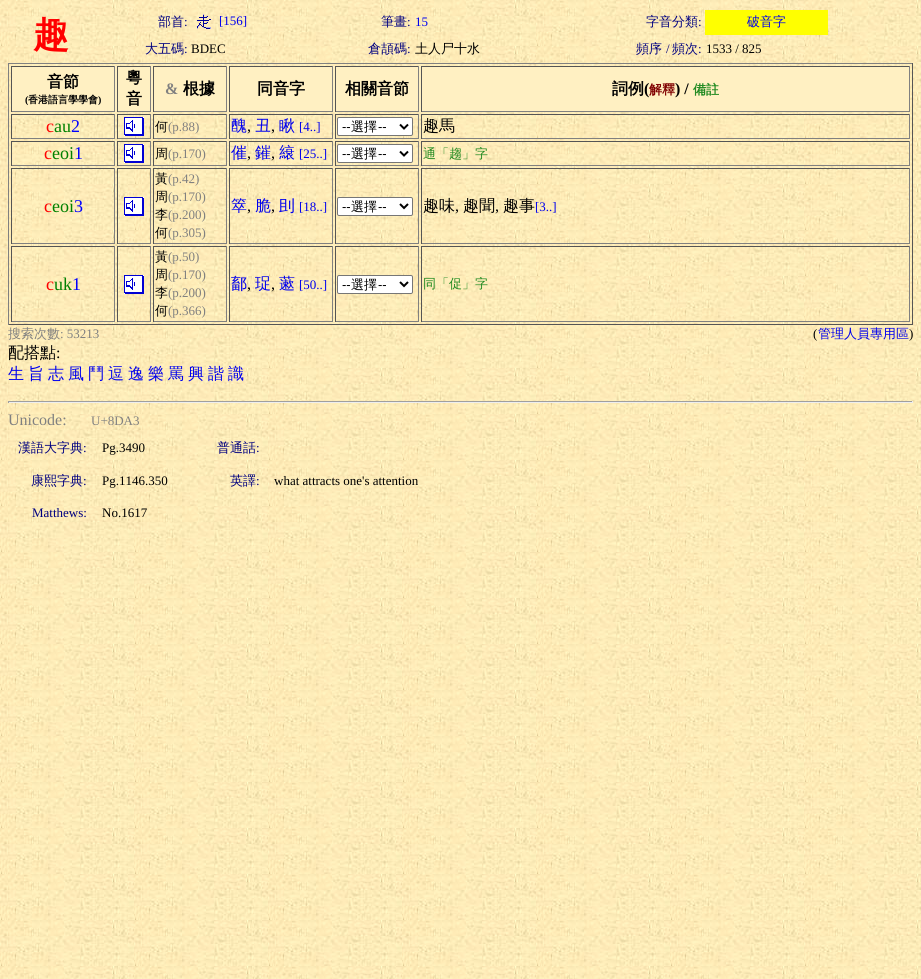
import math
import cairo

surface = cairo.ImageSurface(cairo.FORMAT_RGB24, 921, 979)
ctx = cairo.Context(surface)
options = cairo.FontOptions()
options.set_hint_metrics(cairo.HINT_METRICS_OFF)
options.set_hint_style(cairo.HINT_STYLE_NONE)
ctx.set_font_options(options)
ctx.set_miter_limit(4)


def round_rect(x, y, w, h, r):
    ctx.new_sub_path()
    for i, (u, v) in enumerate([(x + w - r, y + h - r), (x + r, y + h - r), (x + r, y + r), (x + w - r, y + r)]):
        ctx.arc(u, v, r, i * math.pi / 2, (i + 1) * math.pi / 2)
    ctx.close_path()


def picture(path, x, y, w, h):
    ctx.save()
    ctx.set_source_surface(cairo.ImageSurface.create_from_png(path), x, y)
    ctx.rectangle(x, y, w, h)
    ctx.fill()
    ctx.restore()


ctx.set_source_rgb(1, 1, 1)
ctx.paint()
picture("img1.png", 0, 0, 921, 979)
ctx.select_font_face("WenQuanYi Zen Hei", cairo.FONT_SLANT_NORMAL, cairo.FONT_WEIGHT_BOLD)
ctx.set_font_size(36)
ctx.set_source_rgb(1, 0, 0)
ctx.move_to(33, 47)
ctx.show_text("趣")
ctx.select_font_face("WenQuanYi Zen Hei Medium")
ctx.set_font_size(13)
ctx.set_source_rgb(0, 0, 0.502)
ctx.move_to(158, 26)
ctx.show_text("部首")
ctx.select_font_face("Liberation Serif")
ctx.move_to(184, 26)
ctx.show_text(":")
picture("img2.png", 197, 14, 14, 15)
ctx.set_source_rgb(0, 0, 0.933)
ctx.move_to(219, 25)
ctx.show_text("[156]")
ctx.select_font_face("WenQuanYi Zen Hei Medium")
ctx.set_source_rgb(0, 0, 0.502)
ctx.move_to(381, 26)
ctx.show_text("筆畫")
ctx.select_font_face("Liberation Serif")
ctx.move_to(407, 26)
ctx.show_text(":")
ctx.set_source_rgb(0, 0, 0.933)
ctx.move_to(415, 26)
ctx.show_text("15")
ctx.select_font_face("WenQuanYi Zen Hei Medium")
ctx.set_source_rgb(0, 0, 0.502)
ctx.move_to(646, 26)
ctx.show_text("字音分類")
ctx.select_font_face("Liberation Serif")
ctx.move_to(698, 26)
ctx.show_text(":")
ctx.set_source_rgb(1, 1, 0)
ctx.rectangle(705, 10, 123, 25)
ctx.fill()
ctx.select_font_face("WenQuanYi Zen Hei Medium")
ctx.set_source_rgb(0, 0, 0.933)
ctx.move_to(747, 26)
ctx.show_text("破音字")
ctx.set_source_rgb(0, 0, 0.502)
ctx.move_to(145, 53)
ctx.show_text("大五碼")
ctx.select_font_face("Liberation Serif")
ctx.move_to(184, 53)
ctx.show_text(":")
ctx.set_source_rgb(0, 0, 0)
ctx.move_to(191, 53)
ctx.show_text("BDEC")
ctx.select_font_face("WenQuanYi Zen Hei Medium")
ctx.set_source_rgb(0, 0, 0.502)
ctx.move_to(368, 53)
ctx.show_text("倉頡碼")
ctx.select_font_face("Liberation Serif")
ctx.move_to(407, 53)
ctx.show_text(":")
ctx.select_font_face("WenQuanYi Zen Hei Medium")
ctx.set_source_rgb(0, 0, 0)
ctx.move_to(415, 53)
ctx.show_text("土人尸十水")
ctx.set_source_rgb(0, 0, 0.502)
ctx.move_to(636, 53)
ctx.show_text("頻序")
ctx.select_font_face("Liberation Serif")
ctx.move_to(666, 53)
ctx.show_text("/")
ctx.select_font_face("WenQuanYi Zen Hei Medium")
ctx.move_to(672, 53)
ctx.show_text("頻次")
ctx.select_font_face("Liberation Serif")
ctx.move_to(698, 53)
ctx.show_text(":")
ctx.set_source_rgb(0, 0, 0)
ctx.move_to(706, 53)
ctx.show_text("1533 / 825")
ctx.set_source_rgb(0.502, 0.502, 0.502)
ctx.rectangle(8, 63, 905, 1)
ctx.fill()
ctx.set_source_rgb(0.333, 0.333, 0.333)
ctx.rectangle(912, 63, 1, 262)
ctx.fill()
ctx.rectangle(8, 324, 905, 1)
ctx.fill()
ctx.set_source_rgb(0.502, 0.502, 0.502)
ctx.rectangle(8, 63, 1, 262)
ctx.fill()
ctx.set_source_rgb(1, 0.941, 0.761)
ctx.rectangle(12, 66, 897, 46)
ctx.fill()
ctx.set_source_rgb(0.333, 0.333, 0.333)
ctx.rectangle(11, 66, 104, 1)
ctx.fill()
ctx.set_source_rgb(0.502, 0.502, 0.502)
ctx.rectangle(114, 66, 1, 46)
ctx.fill()
ctx.rectangle(11, 111, 104, 1)
ctx.fill()
ctx.set_source_rgb(0.333, 0.333, 0.333)
ctx.rectangle(11, 66, 1, 46)
ctx.fill()
ctx.select_font_face("WenQuanYi Zen Hei", cairo.FONT_SLANT_NORMAL, cairo.FONT_WEIGHT_BOLD)
ctx.set_font_size(16)
ctx.set_source_rgb(0, 0, 0)
ctx.move_to(47, 87)
ctx.show_text("音節")
ctx.select_font_face("Liberation Serif", cairo.FONT_SLANT_NORMAL, cairo.FONT_WEIGHT_BOLD)
ctx.set_font_size(10)
ctx.move_to(25, 103)
ctx.show_text("(")
ctx.select_font_face("WenQuanYi Zen Hei", cairo.FONT_SLANT_NORMAL, cairo.FONT_WEIGHT_BOLD)
ctx.move_to(28, 103)
ctx.show_text("香港語言學學會")
ctx.select_font_face("Liberation Serif", cairo.FONT_SLANT_NORMAL, cairo.FONT_WEIGHT_BOLD)
ctx.move_to(98, 103)
ctx.show_text(")")
ctx.set_source_rgb(0.333, 0.333, 0.333)
ctx.rectangle(117, 66, 34, 1)
ctx.fill()
ctx.set_source_rgb(0.502, 0.502, 0.502)
ctx.rectangle(150, 66, 1, 46)
ctx.fill()
ctx.rectangle(117, 111, 34, 1)
ctx.fill()
ctx.set_source_rgb(0.333, 0.333, 0.333)
ctx.rectangle(117, 66, 1, 46)
ctx.fill()
ctx.select_font_face("WenQuanYi Zen Hei", cairo.FONT_SLANT_NORMAL, cairo.FONT_WEIGHT_BOLD)
ctx.set_font_size(16)
ctx.set_source_rgb(0, 0, 0)
ctx.move_to(126, 83)
ctx.show_text("粵")
ctx.move_to(126, 104)
ctx.show_text("音")
ctx.set_source_rgb(0.333, 0.333, 0.333)
ctx.rectangle(153, 66, 74, 1)
ctx.fill()
ctx.set_source_rgb(0.502, 0.502, 0.502)
ctx.rectangle(226, 66, 1, 46)
ctx.fill()
ctx.rectangle(153, 111, 74, 1)
ctx.fill()
ctx.set_source_rgb(0.333, 0.333, 0.333)
ctx.rectangle(153, 66, 1, 46)
ctx.fill()
ctx.select_font_face("Liberation Serif", cairo.FONT_SLANT_NORMAL, cairo.FONT_WEIGHT_BOLD)
ctx.set_source_rgb(0.502, 0.502, 0.502)
ctx.move_to(165, 94)
ctx.show_text("&")
ctx.select_font_face("WenQuanYi Zen Hei", cairo.FONT_SLANT_NORMAL, cairo.FONT_WEIGHT_BOLD)
ctx.set_source_rgb(0, 0, 0)
ctx.move_to(183, 94)
ctx.show_text("根據")
ctx.set_source_rgb(0.333, 0.333, 0.333)
ctx.rectangle(229, 66, 104, 1)
ctx.fill()
ctx.set_source_rgb(0.502, 0.502, 0.502)
ctx.rectangle(332, 66, 1, 46)
ctx.fill()
ctx.rectangle(229, 111, 104, 1)
ctx.fill()
ctx.set_source_rgb(0.333, 0.333, 0.333)
ctx.rectangle(229, 66, 1, 46)
ctx.fill()
ctx.set_source_rgb(0, 0, 0)
ctx.move_to(257, 94)
ctx.show_text("同音字")
ctx.set_source_rgb(0.333, 0.333, 0.333)
ctx.rectangle(335, 66, 84, 1)
ctx.fill()
ctx.set_source_rgb(0.502, 0.502, 0.502)
ctx.rectangle(418, 66, 1, 46)
ctx.fill()
ctx.rectangle(335, 111, 84, 1)
ctx.fill()
ctx.set_source_rgb(0.333, 0.333, 0.333)
ctx.rectangle(335, 66, 1, 46)
ctx.fill()
ctx.set_source_rgb(0, 0, 0)
ctx.move_to(345, 94)
ctx.show_text("相關音節")
ctx.set_source_rgb(0.333, 0.333, 0.333)
ctx.rectangle(421, 66, 489, 1)
ctx.fill()
ctx.set_source_rgb(0.502, 0.502, 0.502)
ctx.rectangle(909, 66, 1, 46)
ctx.fill()
ctx.rectangle(421, 111, 489, 1)
ctx.fill()
ctx.set_source_rgb(0.333, 0.333, 0.333)
ctx.rectangle(421, 66, 1, 46)
ctx.fill()
ctx.set_source_rgb(0, 0, 0)
ctx.move_to(612, 94)
ctx.show_text("詞例")
ctx.select_font_face("Liberation Serif", cairo.FONT_SLANT_NORMAL, cairo.FONT_WEIGHT_BOLD)
ctx.move_to(644, 94)
ctx.show_text("(")
ctx.select_font_face("WenQuanYi Zen Hei", cairo.FONT_SLANT_NORMAL, cairo.FONT_WEIGHT_BOLD)
ctx.set_font_size(13)
ctx.set_source_rgb(0.502, 0, 0)
ctx.move_to(649, 94)
ctx.show_text("解釋")
ctx.select_font_face("Liberation Serif", cairo.FONT_SLANT_NORMAL, cairo.FONT_WEIGHT_BOLD)
ctx.set_font_size(16)
ctx.set_source_rgb(0, 0, 0)
ctx.move_to(675, 94)
ctx.show_text(") /")
ctx.select_font_face("WenQuanYi Zen Hei", cairo.FONT_SLANT_NORMAL, cairo.FONT_WEIGHT_BOLD)
ctx.set_font_size(13)
ctx.set_source_rgb(0.133, 0.545, 0.133)
ctx.move_to(693, 94)
ctx.show_text("備註")
ctx.set_source_rgb(0.333, 0.333, 0.333)
ctx.rectangle(11, 114, 104, 1)
ctx.fill()
ctx.set_source_rgb(0.502, 0.502, 0.502)
ctx.rectangle(114, 114, 1, 25)
ctx.fill()
ctx.rectangle(11, 138, 104, 1)
ctx.fill()
ctx.set_source_rgb(0.333, 0.333, 0.333)
ctx.rectangle(11, 114, 1, 25)
ctx.fill()
ctx.select_font_face("Liberation Serif")
ctx.set_font_size(18)
ctx.set_source_rgb(1, 0, 0)
ctx.move_to(46, 132)
ctx.show_text("c")
ctx.set_source_rgb(0, 0.502, 0)
ctx.move_to(54, 132)
ctx.show_text("au")
ctx.set_source_rgb(0, 0, 1)
ctx.move_to(71, 132)
ctx.show_text("2")
ctx.set_source_rgb(0.333, 0.333, 0.333)
ctx.rectangle(117, 114, 34, 1)
ctx.fill()
ctx.set_source_rgb(0.502, 0.502, 0.502)
ctx.rectangle(150, 114, 1, 25)
ctx.fill()
ctx.rectangle(117, 138, 34, 1)
ctx.fill()
ctx.set_source_rgb(0.333, 0.333, 0.333)
ctx.rectangle(117, 114, 1, 25)
ctx.fill()
picture("img3.png", 124, 117, 20, 19)
ctx.rectangle(153, 114, 74, 1)
ctx.fill()
ctx.set_source_rgb(0.502, 0.502, 0.502)
ctx.rectangle(226, 114, 1, 25)
ctx.fill()
ctx.rectangle(153, 138, 74, 1)
ctx.fill()
ctx.set_source_rgb(0.333, 0.333, 0.333)
ctx.rectangle(153, 114, 1, 25)
ctx.fill()
ctx.select_font_face("WenQuanYi Zen Hei Medium")
ctx.set_font_size(13)
ctx.set_source_rgb(0, 0, 0)
ctx.move_to(155, 131)
ctx.show_text("何")
ctx.select_font_face("Liberation Serif")
ctx.set_source_rgb(0.502, 0.502, 0.502)
ctx.move_to(168, 131)
ctx.show_text("(p.88)")
ctx.set_source_rgb(0.333, 0.333, 0.333)
ctx.rectangle(229, 114, 104, 1)
ctx.fill()
ctx.set_source_rgb(0.502, 0.502, 0.502)
ctx.rectangle(332, 114, 1, 25)
ctx.fill()
ctx.rectangle(229, 138, 104, 1)
ctx.fill()
ctx.set_source_rgb(0.333, 0.333, 0.333)
ctx.rectangle(229, 114, 1, 25)
ctx.fill()
ctx.select_font_face("WenQuanYi Zen Hei Medium")
ctx.set_font_size(16)
ctx.set_source_rgb(0, 0, 0.933)
ctx.move_to(231, 131)
ctx.show_text("醜")
ctx.select_font_face("Liberation Serif")
ctx.set_source_rgb(0, 0, 0)
ctx.move_to(247, 131)
ctx.show_text(",")
ctx.select_font_face("WenQuanYi Zen Hei Medium")
ctx.set_source_rgb(0, 0, 0.933)
ctx.move_to(255, 131)
ctx.show_text("丑")
ctx.select_font_face("Liberation Serif")
ctx.set_source_rgb(0, 0, 0)
ctx.move_to(271, 131)
ctx.show_text(",")
ctx.select_font_face("WenQuanYi Zen Hei Medium")
ctx.set_source_rgb(0, 0, 0.933)
ctx.move_to(279, 131)
ctx.show_text("瞅")
ctx.select_font_face("Liberation Serif")
ctx.set_font_size(13)
ctx.move_to(299, 131)
ctx.show_text("[4..]")
ctx.set_source_rgb(0.333, 0.333, 0.333)
ctx.rectangle(335, 114, 84, 1)
ctx.fill()
ctx.set_source_rgb(0.502, 0.502, 0.502)
ctx.rectangle(418, 114, 1, 25)
ctx.fill()
ctx.rectangle(335, 138, 84, 1)
ctx.fill()
ctx.set_source_rgb(0.333, 0.333, 0.333)
ctx.rectangle(335, 114, 1, 25)
ctx.fill()
ctx.set_source_rgb(1, 1, 1)
round_rect(337.5, 117.5, 75, 18, 1.5)
ctx.fill_preserve()
ctx.set_source_rgb(0.463, 0.463, 0.463)
ctx.set_line_width(1)
ctx.stroke()
ctx.new_path()
ctx.move_to(400, 124.5)
ctx.line_to(404, 128.5)
ctx.line_to(408, 124.5)
ctx.set_source_rgb(0, 0, 0)
ctx.set_line_width(2)
ctx.stroke()
ctx.select_font_face("Liberation Sans")
ctx.move_to(342, 131)
ctx.show_text("--")
ctx.select_font_face("WenQuanYi Zen Hei Medium")
ctx.move_to(351, 131)
ctx.show_text("選擇")
ctx.select_font_face("Liberation Sans")
ctx.move_to(378, 131)
ctx.show_text("--")
ctx.set_source_rgb(0.333, 0.333, 0.333)
ctx.rectangle(421, 114, 489, 1)
ctx.fill()
ctx.set_source_rgb(0.502, 0.502, 0.502)
ctx.rectangle(909, 114, 1, 25)
ctx.fill()
ctx.rectangle(421, 138, 489, 1)
ctx.fill()
ctx.set_source_rgb(0.333, 0.333, 0.333)
ctx.rectangle(421, 114, 1, 25)
ctx.fill()
ctx.select_font_face("WenQuanYi Zen Hei Medium")
ctx.set_font_size(16)
ctx.set_source_rgb(0, 0, 0)
ctx.move_to(423, 131)
ctx.show_text("趣馬")
ctx.set_source_rgb(0.333, 0.333, 0.333)
ctx.rectangle(11, 141, 104, 1)
ctx.fill()
ctx.set_source_rgb(0.502, 0.502, 0.502)
ctx.rectangle(114, 141, 1, 25)
ctx.fill()
ctx.rectangle(11, 165, 104, 1)
ctx.fill()
ctx.set_source_rgb(0.333, 0.333, 0.333)
ctx.rectangle(11, 141, 1, 25)
ctx.fill()
ctx.select_font_face("Liberation Serif")
ctx.set_font_size(18)
ctx.set_source_rgb(1, 0, 0)
ctx.move_to(44, 159)
ctx.show_text("c")
ctx.set_source_rgb(0, 0.502, 0)
ctx.move_to(52, 159)
ctx.show_text("eoi")
ctx.set_source_rgb(0, 0, 1)
ctx.move_to(74, 159)
ctx.show_text("1")
ctx.set_source_rgb(0.333, 0.333, 0.333)
ctx.rectangle(117, 141, 34, 1)
ctx.fill()
ctx.set_source_rgb(0.502, 0.502, 0.502)
ctx.rectangle(150, 141, 1, 25)
ctx.fill()
ctx.rectangle(117, 165, 34, 1)
ctx.fill()
ctx.set_source_rgb(0.333, 0.333, 0.333)
ctx.rectangle(117, 141, 1, 25)
ctx.fill()
picture("img3.png", 124, 144, 20, 19)
ctx.rectangle(153, 141, 74, 1)
ctx.fill()
ctx.set_source_rgb(0.502, 0.502, 0.502)
ctx.rectangle(226, 141, 1, 25)
ctx.fill()
ctx.rectangle(153, 165, 74, 1)
ctx.fill()
ctx.set_source_rgb(0.333, 0.333, 0.333)
ctx.rectangle(153, 141, 1, 25)
ctx.fill()
ctx.select_font_face("WenQuanYi Zen Hei Medium")
ctx.set_font_size(13)
ctx.set_source_rgb(0, 0, 0)
ctx.move_to(155, 158)
ctx.show_text("周")
ctx.select_font_face("Liberation Serif")
ctx.set_source_rgb(0.502, 0.502, 0.502)
ctx.move_to(168, 158)
ctx.show_text("(p.170)")
ctx.set_source_rgb(0.333, 0.333, 0.333)
ctx.rectangle(229, 141, 104, 1)
ctx.fill()
ctx.set_source_rgb(0.502, 0.502, 0.502)
ctx.rectangle(332, 141, 1, 25)
ctx.fill()
ctx.rectangle(229, 165, 104, 1)
ctx.fill()
ctx.set_source_rgb(0.333, 0.333, 0.333)
ctx.rectangle(229, 141, 1, 25)
ctx.fill()
ctx.select_font_face("WenQuanYi Zen Hei Medium")
ctx.set_font_size(16)
ctx.set_source_rgb(0, 0, 0.933)
ctx.move_to(231, 158)
ctx.show_text("催")
ctx.select_font_face("Liberation Serif")
ctx.set_source_rgb(0, 0, 0)
ctx.move_to(247, 158)
ctx.show_text(",")
ctx.select_font_face("WenQuanYi Zen Hei Medium")
ctx.set_source_rgb(0, 0, 0.933)
ctx.move_to(255, 158)
ctx.show_text("鏙")
ctx.select_font_face("Liberation Serif")
ctx.set_source_rgb(0, 0, 0)
ctx.move_to(271, 158)
ctx.show_text(",")
ctx.select_font_face("WenQuanYi Zen Hei Medium")
ctx.set_source_rgb(0, 0, 0.933)
ctx.move_to(279, 158)
ctx.show_text("縗")
ctx.select_font_face("Liberation Serif")
ctx.set_font_size(13)
ctx.move_to(299, 158)
ctx.show_text("[25..]")
ctx.set_source_rgb(0.333, 0.333, 0.333)
ctx.rectangle(335, 141, 84, 1)
ctx.fill()
ctx.set_source_rgb(0.502, 0.502, 0.502)
ctx.rectangle(418, 141, 1, 25)
ctx.fill()
ctx.rectangle(335, 165, 84, 1)
ctx.fill()
ctx.set_source_rgb(0.333, 0.333, 0.333)
ctx.rectangle(335, 141, 1, 25)
ctx.fill()
ctx.set_source_rgb(1, 1, 1)
round_rect(337.5, 144.5, 75, 18, 1.5)
ctx.fill_preserve()
ctx.set_source_rgb(0.463, 0.463, 0.463)
ctx.set_line_width(1)
ctx.stroke()
ctx.new_path()
ctx.move_to(400, 151.5)
ctx.line_to(404, 155.5)
ctx.line_to(408, 151.5)
ctx.set_source_rgb(0, 0, 0)
ctx.set_line_width(2)
ctx.stroke()
ctx.select_font_face("Liberation Sans")
ctx.move_to(342, 158)
ctx.show_text("--")
ctx.select_font_face("WenQuanYi Zen Hei Medium")
ctx.move_to(351, 158)
ctx.show_text("選擇")
ctx.select_font_face("Liberation Sans")
ctx.move_to(378, 158)
ctx.show_text("--")
ctx.set_source_rgb(0.333, 0.333, 0.333)
ctx.rectangle(421, 141, 489, 1)
ctx.fill()
ctx.set_source_rgb(0.502, 0.502, 0.502)
ctx.rectangle(909, 141, 1, 25)
ctx.fill()
ctx.rectangle(421, 165, 489, 1)
ctx.fill()
ctx.set_source_rgb(0.333, 0.333, 0.333)
ctx.rectangle(421, 141, 1, 25)
ctx.fill()
ctx.select_font_face("WenQuanYi Zen Hei Medium")
ctx.set_source_rgb(0.133, 0.545, 0.133)
ctx.move_to(423, 158)
ctx.show_text("通「趨」字")
ctx.set_source_rgb(0.333, 0.333, 0.333)
ctx.rectangle(11, 168, 104, 1)
ctx.fill()
ctx.set_source_rgb(0.502, 0.502, 0.502)
ctx.rectangle(114, 168, 1, 76)
ctx.fill()
ctx.rectangle(11, 243, 104, 1)
ctx.fill()
ctx.set_source_rgb(0.333, 0.333, 0.333)
ctx.rectangle(11, 168, 1, 76)
ctx.fill()
ctx.select_font_face("Liberation Serif")
ctx.set_font_size(18)
ctx.set_source_rgb(1, 0, 0)
ctx.move_to(44, 212)
ctx.show_text("c")
ctx.set_source_rgb(0, 0.502, 0)
ctx.move_to(52, 212)
ctx.show_text("eoi")
ctx.set_source_rgb(0, 0, 1)
ctx.move_to(74, 212)
ctx.show_text("3")
ctx.set_source_rgb(0.333, 0.333, 0.333)
ctx.rectangle(117, 168, 34, 1)
ctx.fill()
ctx.set_source_rgb(0.502, 0.502, 0.502)
ctx.rectangle(150, 168, 1, 76)
ctx.fill()
ctx.rectangle(117, 243, 34, 1)
ctx.fill()
ctx.set_source_rgb(0.333, 0.333, 0.333)
ctx.rectangle(117, 168, 1, 76)
ctx.fill()
picture("img3.png", 124, 197, 20, 19)
ctx.rectangle(153, 168, 74, 1)
ctx.fill()
ctx.set_source_rgb(0.502, 0.502, 0.502)
ctx.rectangle(226, 168, 1, 76)
ctx.fill()
ctx.rectangle(153, 243, 74, 1)
ctx.fill()
ctx.set_source_rgb(0.333, 0.333, 0.333)
ctx.rectangle(153, 168, 1, 76)
ctx.fill()
ctx.select_font_face("WenQuanYi Zen Hei Medium")
ctx.set_font_size(13)
ctx.set_source_rgb(0, 0, 0)
ctx.move_to(155, 183)
ctx.show_text("黃")
ctx.select_font_face("Liberation Serif")
ctx.set_source_rgb(0.502, 0.502, 0.502)
ctx.move_to(168, 183)
ctx.show_text("(p.42)")
ctx.select_font_face("WenQuanYi Zen Hei Medium")
ctx.set_source_rgb(0, 0, 0)
ctx.move_to(155, 201)
ctx.show_text("周")
ctx.select_font_face("Liberation Serif")
ctx.set_source_rgb(0.502, 0.502, 0.502)
ctx.move_to(168, 201)
ctx.show_text("(p.170)")
ctx.select_font_face("WenQuanYi Zen Hei Medium")
ctx.set_source_rgb(0, 0, 0)
ctx.move_to(155, 219)
ctx.show_text("李")
ctx.select_font_face("Liberation Serif")
ctx.set_source_rgb(0.502, 0.502, 0.502)
ctx.move_to(168, 219)
ctx.show_text("(p.200)")
ctx.select_font_face("WenQuanYi Zen Hei Medium")
ctx.set_source_rgb(0, 0, 0)
ctx.move_to(155, 237)
ctx.show_text("何")
ctx.select_font_face("Liberation Serif")
ctx.set_source_rgb(0.502, 0.502, 0.502)
ctx.move_to(168, 237)
ctx.show_text("(p.305)")
ctx.set_source_rgb(0.333, 0.333, 0.333)
ctx.rectangle(229, 168, 104, 1)
ctx.fill()
ctx.set_source_rgb(0.502, 0.502, 0.502)
ctx.rectangle(332, 168, 1, 76)
ctx.fill()
ctx.rectangle(229, 243, 104, 1)
ctx.fill()
ctx.set_source_rgb(0.333, 0.333, 0.333)
ctx.rectangle(229, 168, 1, 76)
ctx.fill()
ctx.select_font_face("WenQuanYi Zen Hei Medium")
ctx.set_font_size(16)
ctx.set_source_rgb(0, 0, 0.933)
ctx.move_to(231, 211)
ctx.show_text("箤")
ctx.select_font_face("Liberation Serif")
ctx.set_source_rgb(0, 0, 0)
ctx.move_to(247, 211)
ctx.show_text(",")
ctx.select_font_face("WenQuanYi Zen Hei Medium")
ctx.set_source_rgb(0, 0, 0.933)
ctx.move_to(255, 211)
ctx.show_text("脆")
ctx.select_font_face("Liberation Serif")
ctx.set_source_rgb(0, 0, 0)
ctx.move_to(271, 211)
ctx.show_text(",")
ctx.select_font_face("WenQuanYi Zen Hei Medium")
ctx.set_source_rgb(0, 0, 0.933)
ctx.move_to(279, 211)
ctx.show_text("刞")
ctx.select_font_face("Liberation Serif")
ctx.set_font_size(13)
ctx.move_to(299, 211)
ctx.show_text("[18..]")
ctx.set_source_rgb(0.333, 0.333, 0.333)
ctx.rectangle(335, 168, 84, 1)
ctx.fill()
ctx.set_source_rgb(0.502, 0.502, 0.502)
ctx.rectangle(418, 168, 1, 76)
ctx.fill()
ctx.rectangle(335, 243, 84, 1)
ctx.fill()
ctx.set_source_rgb(0.333, 0.333, 0.333)
ctx.rectangle(335, 168, 1, 76)
ctx.fill()
ctx.set_source_rgb(1, 1, 1)
round_rect(337.5, 197.5, 75, 18, 1.5)
ctx.fill_preserve()
ctx.set_source_rgb(0.463, 0.463, 0.463)
ctx.set_line_width(1)
ctx.stroke()
ctx.new_path()
ctx.move_to(400, 204)
ctx.line_to(404, 208)
ctx.line_to(408, 204)
ctx.set_source_rgb(0, 0, 0)
ctx.set_line_width(2)
ctx.stroke()
ctx.select_font_face("Liberation Sans")
ctx.move_to(342, 211)
ctx.show_text("--")
ctx.select_font_face("WenQuanYi Zen Hei Medium")
ctx.move_to(351, 211)
ctx.show_text("選擇")
ctx.select_font_face("Liberation Sans")
ctx.move_to(378, 211)
ctx.show_text("--")
ctx.set_source_rgb(0.333, 0.333, 0.333)
ctx.rectangle(421, 168, 489, 1)
ctx.fill()
ctx.set_source_rgb(0.502, 0.502, 0.502)
ctx.rectangle(909, 168, 1, 76)
ctx.fill()
ctx.rectangle(421, 243, 489, 1)
ctx.fill()
ctx.set_source_rgb(0.333, 0.333, 0.333)
ctx.rectangle(421, 168, 1, 76)
ctx.fill()
ctx.select_font_face("WenQuanYi Zen Hei Medium")
ctx.set_font_size(16)
ctx.set_source_rgb(0, 0, 0)
ctx.move_to(423, 211)
ctx.show_text("趣味")
ctx.select_font_face("Liberation Serif")
ctx.move_to(455, 211)
ctx.show_text(",")
ctx.select_font_face("WenQuanYi Zen Hei Medium")
ctx.move_to(463, 211)
ctx.show_text("趣聞")
ctx.select_font_face("Liberation Serif")
ctx.move_to(495, 211)
ctx.show_text(",")
ctx.select_font_face("WenQuanYi Zen Hei Medium")
ctx.move_to(503, 211)
ctx.show_text("趣事")
ctx.select_font_face("Liberation Serif")
ctx.set_font_size(13)
ctx.set_source_rgb(0, 0, 0.933)
ctx.move_to(535, 211)
ctx.show_text("[3..]")
ctx.set_source_rgb(0.333, 0.333, 0.333)
ctx.rectangle(11, 246, 104, 1)
ctx.fill()
ctx.set_source_rgb(0.502, 0.502, 0.502)
ctx.rectangle(114, 246, 1, 76)
ctx.fill()
ctx.rectangle(11, 321, 104, 1)
ctx.fill()
ctx.set_source_rgb(0.333, 0.333, 0.333)
ctx.rectangle(11, 246, 1, 76)
ctx.fill()
ctx.set_font_size(18)
ctx.set_source_rgb(1, 0, 0)
ctx.move_to(46, 290)
ctx.show_text("c")
ctx.set_source_rgb(0, 0.502, 0)
ctx.move_to(54, 290)
ctx.show_text("uk")
ctx.set_source_rgb(0, 0, 1)
ctx.move_to(72, 290)
ctx.show_text("1")
ctx.set_source_rgb(0.333, 0.333, 0.333)
ctx.rectangle(117, 246, 34, 1)
ctx.fill()
ctx.set_source_rgb(0.502, 0.502, 0.502)
ctx.rectangle(150, 246, 1, 76)
ctx.fill()
ctx.rectangle(117, 321, 34, 1)
ctx.fill()
ctx.set_source_rgb(0.333, 0.333, 0.333)
ctx.rectangle(117, 246, 1, 76)
ctx.fill()
picture("img3.png", 124, 275, 20, 19)
ctx.rectangle(153, 246, 74, 1)
ctx.fill()
ctx.set_source_rgb(0.502, 0.502, 0.502)
ctx.rectangle(226, 246, 1, 76)
ctx.fill()
ctx.rectangle(153, 321, 74, 1)
ctx.fill()
ctx.set_source_rgb(0.333, 0.333, 0.333)
ctx.rectangle(153, 246, 1, 76)
ctx.fill()
ctx.select_font_face("WenQuanYi Zen Hei Medium")
ctx.set_font_size(13)
ctx.set_source_rgb(0, 0, 0)
ctx.move_to(155, 261)
ctx.show_text("黃")
ctx.select_font_face("Liberation Serif")
ctx.set_source_rgb(0.502, 0.502, 0.502)
ctx.move_to(168, 261)
ctx.show_text("(p.50)")
ctx.select_font_face("WenQuanYi Zen Hei Medium")
ctx.set_source_rgb(0, 0, 0)
ctx.move_to(155, 279)
ctx.show_text("周")
ctx.select_font_face("Liberation Serif")
ctx.set_source_rgb(0.502, 0.502, 0.502)
ctx.move_to(168, 279)
ctx.show_text("(p.170)")
ctx.select_font_face("WenQuanYi Zen Hei Medium")
ctx.set_source_rgb(0, 0, 0)
ctx.move_to(155, 297)
ctx.show_text("李")
ctx.select_font_face("Liberation Serif")
ctx.set_source_rgb(0.502, 0.502, 0.502)
ctx.move_to(168, 297)
ctx.show_text("(p.200)")
ctx.select_font_face("WenQuanYi Zen Hei Medium")
ctx.set_source_rgb(0, 0, 0)
ctx.move_to(155, 315)
ctx.show_text("何")
ctx.select_font_face("Liberation Serif")
ctx.set_source_rgb(0.502, 0.502, 0.502)
ctx.move_to(168, 315)
ctx.show_text("(p.366)")
ctx.set_source_rgb(0.333, 0.333, 0.333)
ctx.rectangle(229, 246, 104, 1)
ctx.fill()
ctx.set_source_rgb(0.502, 0.502, 0.502)
ctx.rectangle(332, 246, 1, 76)
ctx.fill()
ctx.rectangle(229, 321, 104, 1)
ctx.fill()
ctx.set_source_rgb(0.333, 0.333, 0.333)
ctx.rectangle(229, 246, 1, 76)
ctx.fill()
ctx.select_font_face("WenQuanYi Zen Hei Medium")
ctx.set_font_size(16)
ctx.set_source_rgb(0, 0, 0.933)
ctx.move_to(231, 289)
ctx.show_text("鄐")
ctx.select_font_face("Liberation Serif")
ctx.set_source_rgb(0, 0, 0)
ctx.move_to(247, 289)
ctx.show_text(",")
ctx.select_font_face("WenQuanYi Zen Hei Medium")
ctx.set_source_rgb(0, 0, 0.933)
ctx.move_to(255, 289)
ctx.show_text("珿")
ctx.select_font_face("Liberation Serif")
ctx.set_source_rgb(0, 0, 0)
ctx.move_to(271, 289)
ctx.show_text(",")
ctx.select_font_face("WenQuanYi Zen Hei Medium")
ctx.set_source_rgb(0, 0, 0.933)
ctx.move_to(279, 289)
ctx.show_text("藗")
ctx.select_font_face("Liberation Serif")
ctx.set_font_size(13)
ctx.move_to(299, 289)
ctx.show_text("[50..]")
ctx.set_source_rgb(0.333, 0.333, 0.333)
ctx.rectangle(335, 246, 84, 1)
ctx.fill()
ctx.set_source_rgb(0.502, 0.502, 0.502)
ctx.rectangle(418, 246, 1, 76)
ctx.fill()
ctx.rectangle(335, 321, 84, 1)
ctx.fill()
ctx.set_source_rgb(0.333, 0.333, 0.333)
ctx.rectangle(335, 246, 1, 76)
ctx.fill()
ctx.set_source_rgb(1, 1, 1)
round_rect(337.5, 275.5, 75, 18, 1.5)
ctx.fill_preserve()
ctx.set_source_rgb(0.463, 0.463, 0.463)
ctx.set_line_width(1)
ctx.stroke()
ctx.new_path()
ctx.move_to(400, 282)
ctx.line_to(404, 286)
ctx.line_to(408, 282)
ctx.set_source_rgb(0, 0, 0)
ctx.set_line_width(2)
ctx.stroke()
ctx.select_font_face("Liberation Sans")
ctx.move_to(342, 289)
ctx.show_text("--")
ctx.select_font_face("WenQuanYi Zen Hei Medium")
ctx.move_to(351, 289)
ctx.show_text("選擇")
ctx.select_font_face("Liberation Sans")
ctx.move_to(378, 289)
ctx.show_text("--")
ctx.set_source_rgb(0.333, 0.333, 0.333)
ctx.rectangle(421, 246, 489, 1)
ctx.fill()
ctx.set_source_rgb(0.502, 0.502, 0.502)
ctx.rectangle(909, 246, 1, 76)
ctx.fill()
ctx.rectangle(421, 321, 489, 1)
ctx.fill()
ctx.set_source_rgb(0.333, 0.333, 0.333)
ctx.rectangle(421, 246, 1, 76)
ctx.fill()
ctx.select_font_face("WenQuanYi Zen Hei Medium")
ctx.set_source_rgb(0.133, 0.545, 0.133)
ctx.move_to(423, 288)
ctx.show_text("同「促」字")
ctx.set_source_rgb(0.502, 0.502, 0.502)
ctx.move_to(8, 338)
ctx.show_text("搜索次數")
ctx.select_font_face("Liberation Serif")
ctx.move_to(60, 338)
ctx.show_text(": 53213")
ctx.set_source_rgb(0, 0, 0)
ctx.move_to(813, 338)
ctx.show_text("(")
ctx.select_font_face("WenQuanYi Zen Hei Medium")
ctx.set_source_rgb(0, 0, 0.933)
ctx.move_to(818, 338)
ctx.show_text("管理人員專用區")
ctx.select_font_face("Liberation Serif")
ctx.set_source_rgb(0, 0, 0)
ctx.move_to(909, 338)
ctx.show_text(")")
ctx.select_font_face("WenQuanYi Zen Hei Medium")
ctx.set_font_size(16)
ctx.move_to(8, 358)
ctx.show_text("配搭點")
ctx.select_font_face("Liberation Serif")
ctx.move_to(56, 358)
ctx.show_text(":")
ctx.select_font_face("WenQuanYi Zen Hei Medium")
ctx.set_source_rgb(0, 0, 0.933)
ctx.move_to(8, 379)
ctx.show_text("生")
ctx.move_to(28, 379)
ctx.show_text("旨")
ctx.move_to(48, 379)
ctx.show_text("志")
ctx.move_to(68, 379)
ctx.show_text("風")
ctx.move_to(88, 379)
ctx.show_text("鬥")
ctx.move_to(108, 379)
ctx.show_text("逗")
ctx.move_to(128, 379)
ctx.show_text("逸")
ctx.move_to(148, 379)
ctx.show_text("樂")
ctx.move_to(168, 379)
ctx.show_text("罵")
ctx.move_to(188, 379)
ctx.show_text("興")
ctx.move_to(208, 379)
ctx.show_text("諧")
ctx.move_to(228, 379)
ctx.show_text("識")
ctx.set_source_rgb(0.624, 0.624, 0.624)
ctx.rectangle(8, 401, 905, 1)
ctx.fill()
ctx.set_source_rgb(0.933, 0.933, 0.933)
ctx.rectangle(912, 401, 1, 2)
ctx.fill()
ctx.rectangle(8, 402, 905, 1)
ctx.fill()
ctx.set_source_rgb(0.624, 0.624, 0.624)
ctx.rectangle(8, 401, 1, 2)
ctx.fill()
ctx.select_font_face("Liberation Serif")
ctx.set_source_rgb(0.502, 0.502, 0.502)
ctx.move_to(8, 425)
ctx.show_text("Unicode:")
ctx.set_font_size(13)
ctx.move_to(91, 425)
ctx.show_text("U+8DA3")
ctx.select_font_face("WenQuanYi Zen Hei Medium")
ctx.set_source_rgb(0, 0, 0.502)
ctx.move_to(18, 452)
ctx.show_text("漢語大字典")
ctx.select_font_face("Liberation Serif")
ctx.move_to(83, 452)
ctx.show_text(":")
ctx.set_source_rgb(0, 0, 0)
ctx.move_to(102, 452)
ctx.show_text("Pg.3490")
ctx.select_font_face("WenQuanYi Zen Hei Medium")
ctx.set_source_rgb(0, 0, 0.502)
ctx.move_to(217, 452)
ctx.show_text("普通話")
ctx.select_font_face("Liberation Serif")
ctx.move_to(256, 452)
ctx.show_text(":")
ctx.select_font_face("WenQuanYi Zen Hei Medium")
ctx.move_to(31, 485)
ctx.show_text("康熙字典")
ctx.select_font_face("Liberation Serif")
ctx.move_to(83, 485)
ctx.show_text(":")
ctx.set_source_rgb(0, 0, 0)
ctx.move_to(102, 485)
ctx.show_text("Pg.1146.350")
ctx.select_font_face("WenQuanYi Zen Hei Medium")
ctx.set_source_rgb(0, 0, 0.502)
ctx.move_to(230, 485)
ctx.show_text("英譯")
ctx.select_font_face("Liberation Serif")
ctx.move_to(256, 485)
ctx.show_text(":")
ctx.set_source_rgb(0, 0, 0)
ctx.move_to(274, 485)
ctx.show_text("what attracts one's attention")
ctx.set_source_rgb(0, 0, 0.502)
ctx.move_to(32, 517)
ctx.show_text("Matthews:")
ctx.set_source_rgb(0, 0, 0)
ctx.move_to(102, 517)
ctx.show_text("No.1617")
surface.write_to_png("page.png")
